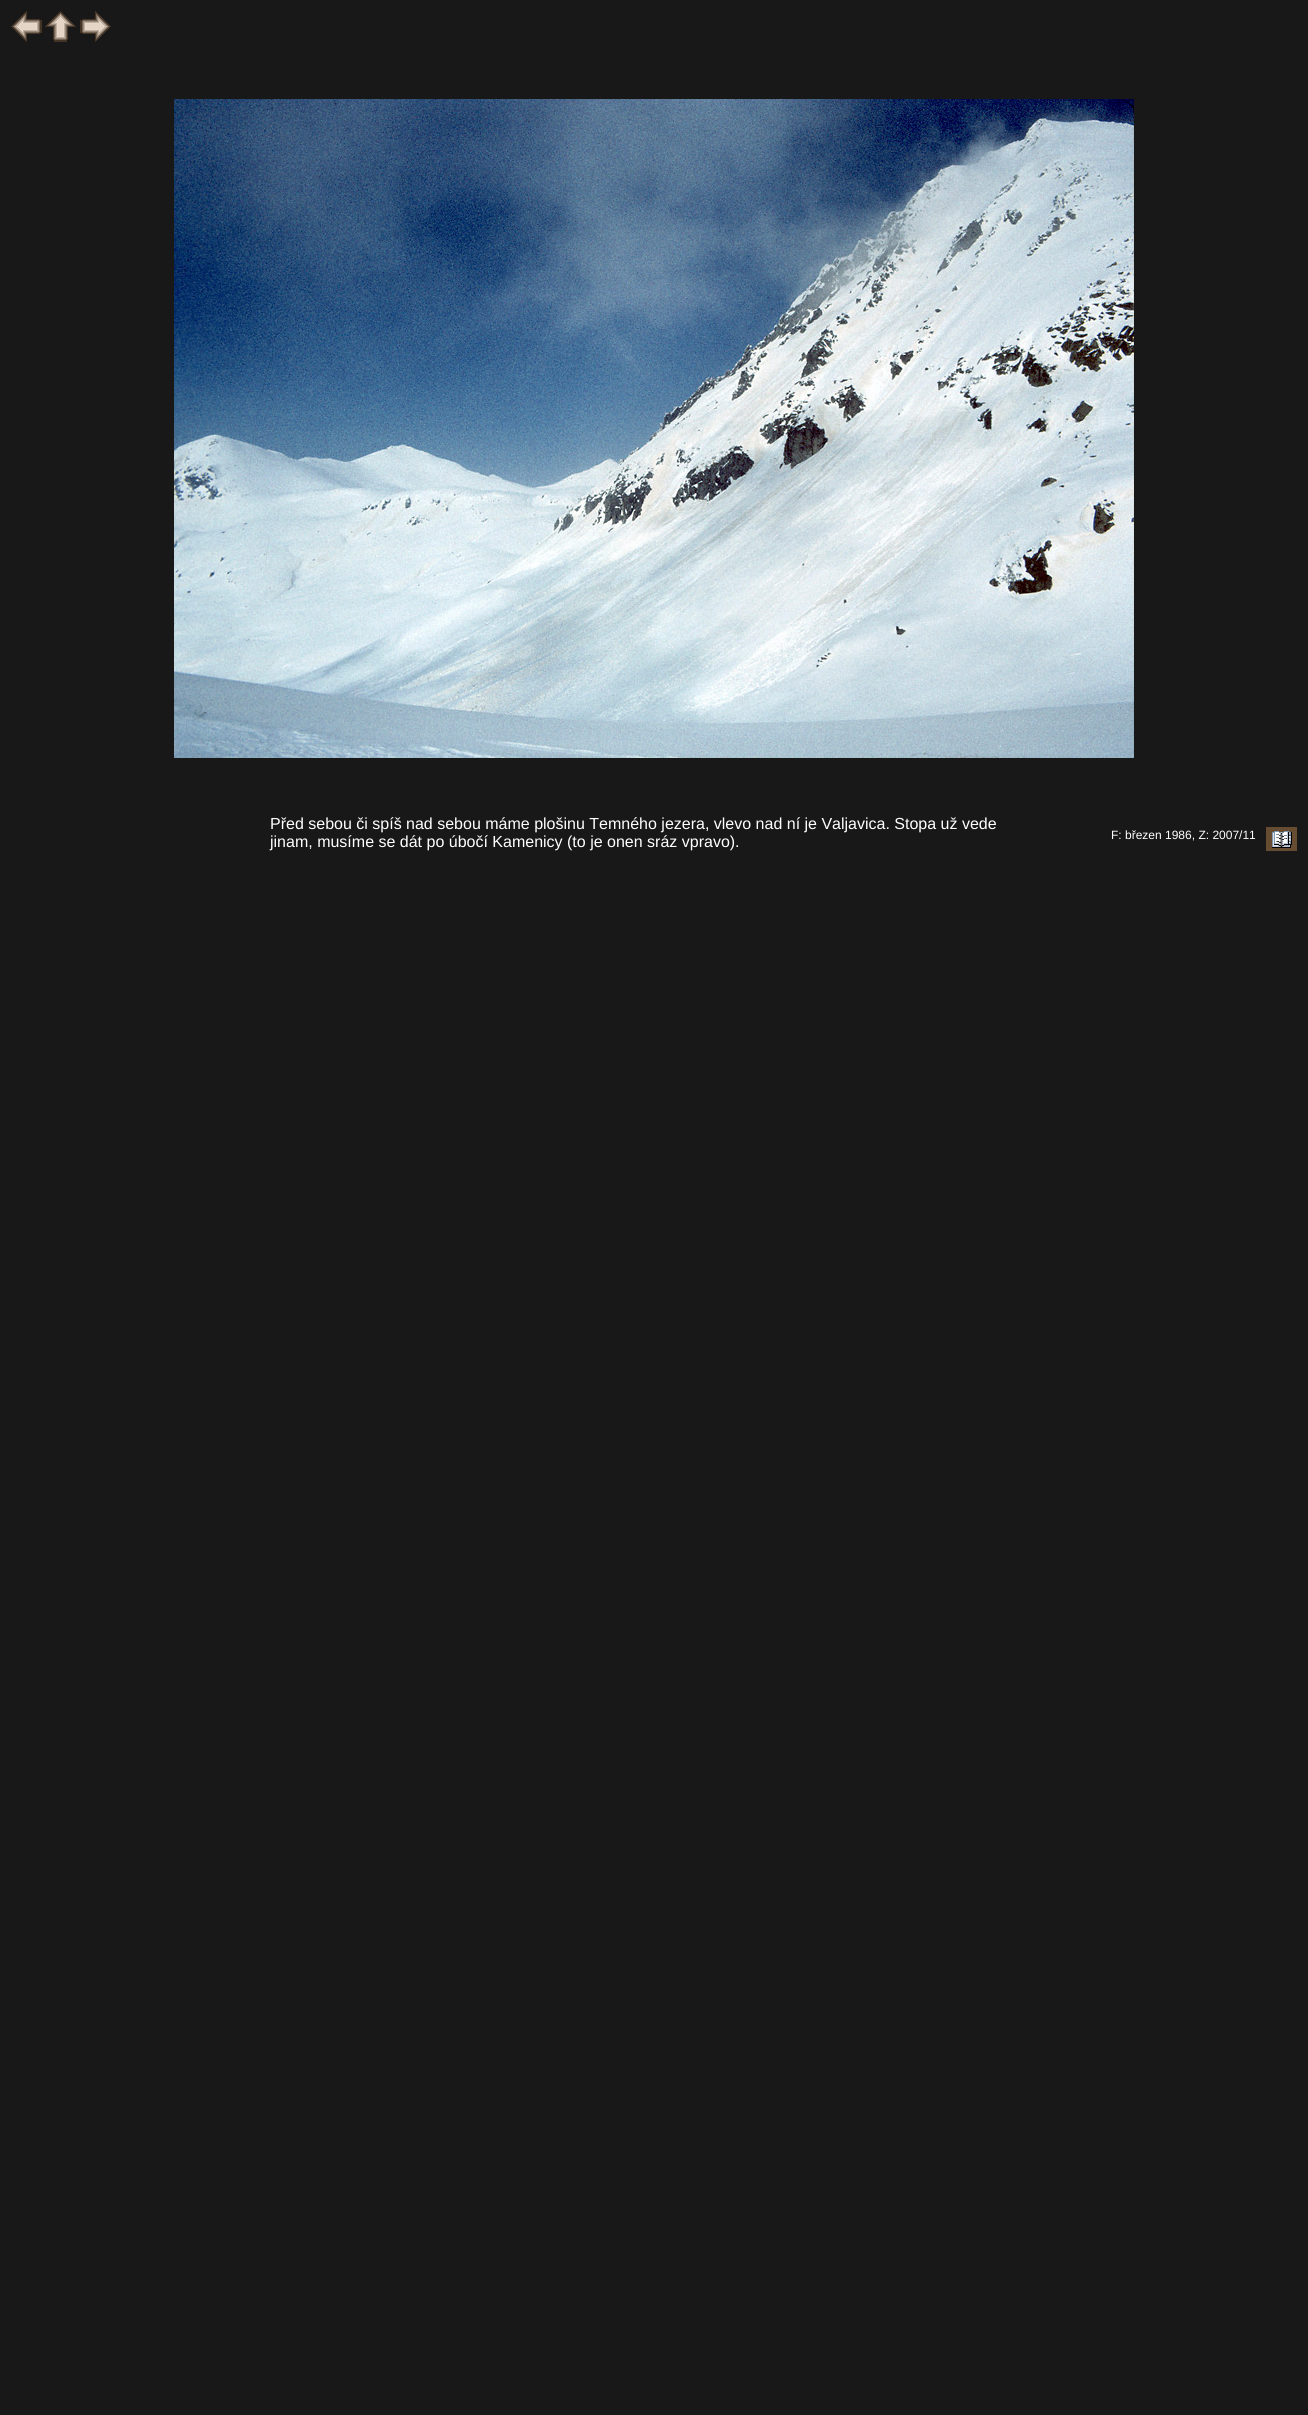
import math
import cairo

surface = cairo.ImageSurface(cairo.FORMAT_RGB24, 1308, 2415)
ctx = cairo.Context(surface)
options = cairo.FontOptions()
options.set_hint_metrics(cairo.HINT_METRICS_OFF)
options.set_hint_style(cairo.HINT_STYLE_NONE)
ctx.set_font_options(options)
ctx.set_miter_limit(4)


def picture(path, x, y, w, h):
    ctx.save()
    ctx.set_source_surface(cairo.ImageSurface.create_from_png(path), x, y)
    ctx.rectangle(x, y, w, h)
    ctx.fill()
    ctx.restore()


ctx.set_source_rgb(0.094, 0.094, 0.094)
ctx.paint()
picture("img1.png", 11, 11, 31, 31)
picture("img2.png", 45, 11, 31, 31)
picture("img3.png", 80, 11, 31, 31)
picture("img4.png", 174, 99, 960, 659)
ctx.select_font_face("Liberation Sans")
ctx.set_font_size(16)
ctx.set_source_rgb(1, 1, 1)
ctx.move_to(270, 829)
ctx.show_text("Před sebou či spíš nad sebou máme plošinu Temného jezera, vlevo nad ní je Valjavica. Stopa už vede")
ctx.move_to(270, 847)
ctx.show_text("jinam, musíme se dát po úbočí Kamenicy (to je onen sráz vpravo).")
ctx.set_font_size(12)
ctx.move_to(1111, 839)
ctx.show_text("F: březen 1986, Z: 2007/11")
picture("img5.png", 1266, 827, 31, 24)
surface.write_to_png("page.png")
